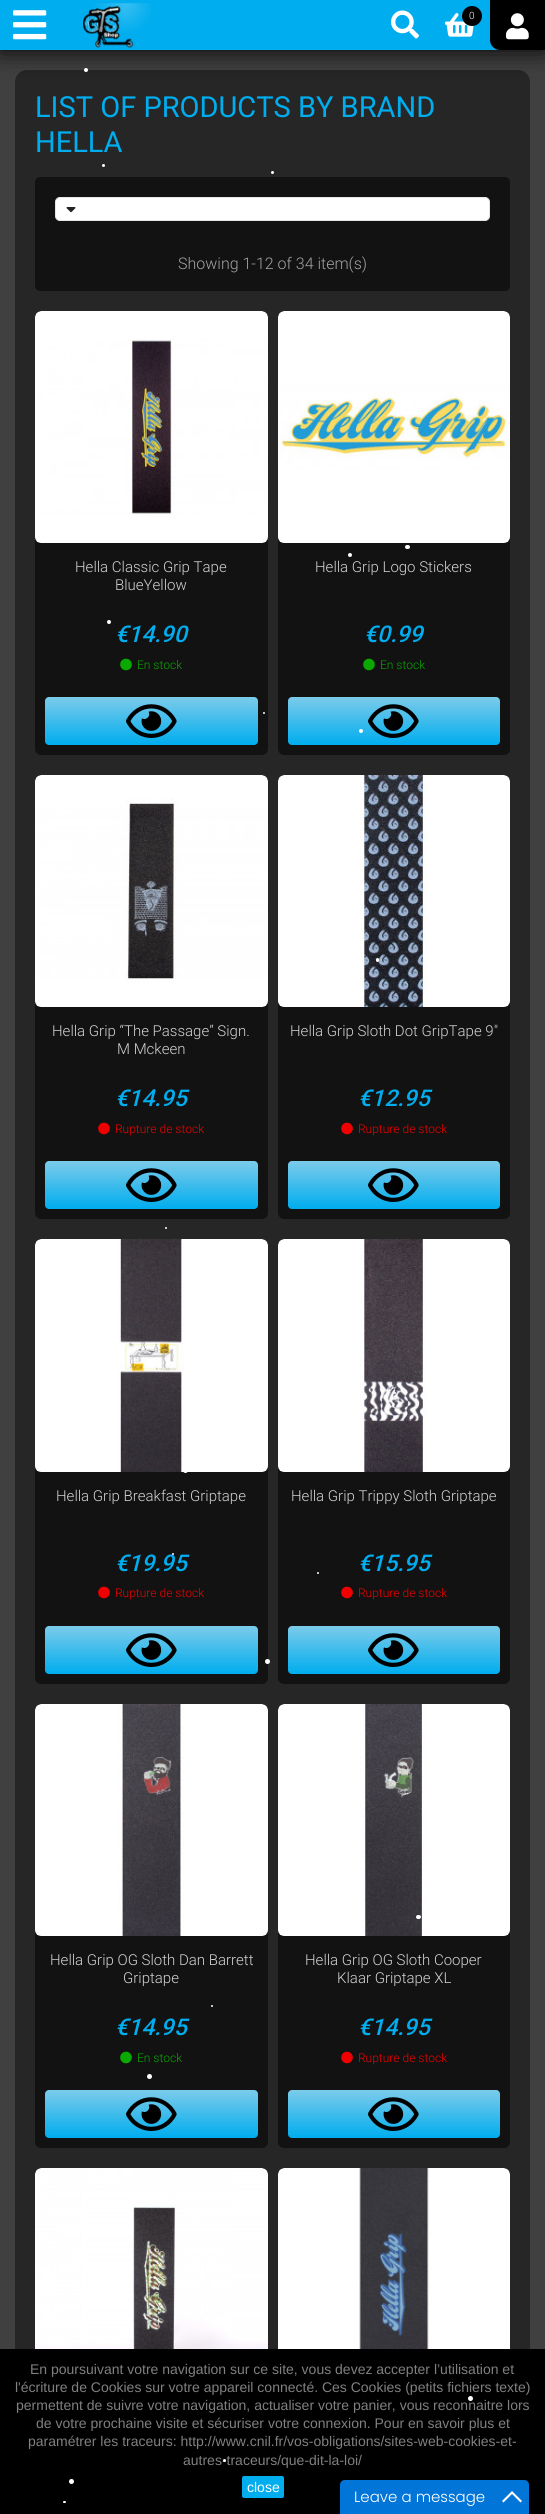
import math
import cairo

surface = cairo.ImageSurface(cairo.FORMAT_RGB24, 545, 2514)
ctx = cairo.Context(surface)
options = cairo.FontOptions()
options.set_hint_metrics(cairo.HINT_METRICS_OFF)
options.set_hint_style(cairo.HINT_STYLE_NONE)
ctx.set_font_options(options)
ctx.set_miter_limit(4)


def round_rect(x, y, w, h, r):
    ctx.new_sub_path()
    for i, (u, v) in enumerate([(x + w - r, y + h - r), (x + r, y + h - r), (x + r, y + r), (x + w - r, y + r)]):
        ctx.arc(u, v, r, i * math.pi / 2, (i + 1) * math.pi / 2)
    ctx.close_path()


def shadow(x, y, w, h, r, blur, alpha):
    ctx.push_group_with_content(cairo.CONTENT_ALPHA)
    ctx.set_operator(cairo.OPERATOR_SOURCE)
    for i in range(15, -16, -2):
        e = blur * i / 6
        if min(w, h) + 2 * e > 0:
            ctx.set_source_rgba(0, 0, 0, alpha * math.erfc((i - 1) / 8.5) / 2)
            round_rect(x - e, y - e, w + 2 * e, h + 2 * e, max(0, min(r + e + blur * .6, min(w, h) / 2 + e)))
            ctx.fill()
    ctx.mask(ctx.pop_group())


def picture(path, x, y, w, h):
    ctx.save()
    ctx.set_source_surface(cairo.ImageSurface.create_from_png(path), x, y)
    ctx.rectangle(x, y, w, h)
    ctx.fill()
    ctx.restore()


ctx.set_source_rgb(0.251, 0.251, 0.251)
ctx.paint()
ctx.set_source_rgb(0.149, 0.149, 0.149)
round_rect(15, 70, 515, 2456, 12)
ctx.fill()
ctx.set_source_rgb(0, 0, 0)
shadow(0, 0, 545, 50, 0, 12.5, 1)
ctx.set_source_rgb(0, 0.678, 0.933)
ctx.rectangle(0, 0, 500, 50)
ctx.fill()
picture("img1.png", 13, 10, 34, 30)
picture("img2.png", 83, 3, 68, 45)
picture("img3.png", 391, 10, 28, 29)
picture("img4.png", 445, 13, 29, 24)
ctx.set_source_rgb(0, 0, 0)
ctx.arc(472, 16, 10, 0, 2 * math.pi)
ctx.fill()
ctx.select_font_face("Roboto Light")
ctx.set_font_size(10)
ctx.set_source_rgb(1, 1, 1)
ctx.move_to(469, 19)
ctx.show_text("0")
ctx.set_source_rgb(0, 0, 0)
ctx.new_path()
ctx.move_to(490, 0)
ctx.line_to(545, 0)
ctx.line_to(545, 50)
ctx.line_to(500, 50)
ctx.curve_to(494.5, 50, 490, 45.5, 490, 40)
ctx.close_path()
ctx.fill()
picture("img5.png", 506, 13, 23, 27)
ctx.set_source_rgb(1, 1, 1)
ctx.arc(86, 70, 2, 0, 2 * math.pi)
ctx.fill()
ctx.select_font_face("Roboto")
ctx.set_font_size(29)
ctx.set_source_rgb(0, 0.678, 0.933)
ctx.move_to(35, 117)
ctx.show_text("LIST OF PRODUCTS BY BRAND")
ctx.move_to(35, 152)
ctx.show_text("HELLA")
ctx.set_source_rgb(0.071, 0.071, 0.071)
round_rect(35, 177, 475, 114, 5)
ctx.fill()
ctx.set_source_rgb(1, 1, 1)
round_rect(55.5, 197.5, 434, 23, 4.5)
ctx.fill_preserve()
ctx.set_source_rgb(0.902, 0.902, 0.902)
ctx.set_line_width(1)
ctx.stroke()
picture("img6.png", 66, 207, 10, 6)
ctx.select_font_face("Roboto Light")
ctx.set_font_size(16)
ctx.set_source_rgb(0.635, 0.635, 0.635)
ctx.move_to(178, 269)
ctx.show_text("Showing 1-12 of 34 item(s)")
ctx.set_source_rgb(0.071, 0.071, 0.071)
round_rect(35, 311, 233, 444, 6)
ctx.fill()
picture("img7.png", 35, 311, 233, 232)
ctx.set_font_size(15)
ctx.set_source_rgb(0.827, 0.827, 0.827)
ctx.move_to(75, 572)
ctx.show_text("Hella Classic Grip Tape")
ctx.move_to(115, 590)
ctx.show_text("BlueYellow")
ctx.select_font_face("Roboto Medium", cairo.FONT_SLANT_ITALIC)
ctx.set_font_size(23)
ctx.set_source_rgb(0, 0.678, 0.933)
ctx.move_to(115, 642)
ctx.show_text("€14.90")
picture("img8.png", 120, 658, 12, 13)
ctx.select_font_face("Roboto Light")
ctx.set_font_size(12)
ctx.set_source_rgb(0.035, 0.663, 0)
ctx.move_to(137, 669)
ctx.show_text("En stock")
gradient = cairo.LinearGradient(152, 745, 152, 697)
gradient.add_color_stop_rgba(0, 0, 0.678, 0.933, 1)
gradient.add_color_stop_rgba(1, 0.486, 0.796, 0.918, 1)
ctx.set_source(gradient)
round_rect(45, 697, 213, 48, 4)
ctx.fill()
picture("img9.png", 126, 704, 51, 34)
ctx.set_source_rgb(0.071, 0.071, 0.071)
round_rect(278, 311, 232, 444, 6)
ctx.fill()
picture("img10.png", 278, 311, 232, 232)
ctx.set_font_size(15)
ctx.set_source_rgb(0.827, 0.827, 0.827)
ctx.move_to(315, 572)
ctx.show_text("Hella Grip Logo Stickers")
ctx.select_font_face("Roboto Medium", cairo.FONT_SLANT_ITALIC)
ctx.set_font_size(23)
ctx.set_source_rgb(0, 0.678, 0.933)
ctx.move_to(364, 642)
ctx.show_text("€0.99")
picture("img8.png", 363, 658, 12, 13)
ctx.select_font_face("Roboto Light")
ctx.set_font_size(12)
ctx.set_source_rgb(0.035, 0.663, 0)
ctx.move_to(380, 669)
ctx.show_text("En stock")
gradient = cairo.LinearGradient(394, 745, 394, 697)
gradient.add_color_stop_rgba(0, 0, 0.678, 0.933, 1)
gradient.add_color_stop_rgba(1, 0.486, 0.796, 0.918, 1)
ctx.set_source(gradient)
round_rect(288, 697, 212, 48, 4)
ctx.fill()
picture("img9.png", 368, 704, 51, 34)
ctx.set_source_rgb(0.071, 0.071, 0.071)
round_rect(35, 775, 233, 444, 6)
ctx.fill()
picture("img11.png", 35, 775, 233, 232)
ctx.set_font_size(15)
ctx.set_source_rgb(0.827, 0.827, 0.827)
ctx.move_to(52, 1036)
ctx.show_text("Hella Grip “The Passage” Sign.")
ctx.move_to(117, 1054)
ctx.show_text("M Mckeen")
ctx.select_font_face("Roboto Medium", cairo.FONT_SLANT_ITALIC)
ctx.set_font_size(23)
ctx.set_source_rgb(0, 0.678, 0.933)
ctx.move_to(115, 1106)
ctx.show_text("€14.95")
picture("img12.png", 98, 1122, 12, 13)
ctx.select_font_face("Roboto Light")
ctx.set_font_size(12)
ctx.set_source_rgb(0.945, 0, 0)
ctx.move_to(115, 1133)
ctx.show_text("Rupture de stock")
gradient = cairo.LinearGradient(152, 1209, 152, 1161)
gradient.add_color_stop_rgba(0, 0, 0.678, 0.933, 1)
gradient.add_color_stop_rgba(1, 0.486, 0.796, 0.918, 1)
ctx.set_source(gradient)
round_rect(45, 1161, 213, 48, 4)
ctx.fill()
picture("img9.png", 126, 1168, 51, 34)
ctx.set_source_rgb(0.071, 0.071, 0.071)
round_rect(278, 775, 232, 444, 6)
ctx.fill()
picture("img13.png", 278, 775, 232, 232)
ctx.set_font_size(15)
ctx.set_source_rgb(0.827, 0.827, 0.827)
ctx.move_to(290, 1036)
ctx.show_text("Hella Grip Sloth Dot GripTape 9\"")
ctx.select_font_face("Roboto Medium", cairo.FONT_SLANT_ITALIC)
ctx.set_font_size(23)
ctx.set_source_rgb(0, 0.678, 0.933)
ctx.move_to(358, 1106)
ctx.show_text("€12.95")
picture("img12.png", 341, 1122, 12, 13)
ctx.select_font_face("Roboto Light")
ctx.set_font_size(12)
ctx.set_source_rgb(0.945, 0, 0)
ctx.move_to(358, 1133)
ctx.show_text("Rupture de stock")
gradient = cairo.LinearGradient(394, 1209, 394, 1161)
gradient.add_color_stop_rgba(0, 0, 0.678, 0.933, 1)
gradient.add_color_stop_rgba(1, 0.486, 0.796, 0.918, 1)
ctx.set_source(gradient)
round_rect(288, 1161, 212, 48, 4)
ctx.fill()
picture("img9.png", 368, 1168, 51, 34)
ctx.set_source_rgb(0.071, 0.071, 0.071)
round_rect(35, 1239, 233, 445, 6)
ctx.fill()
picture("img14.png", 35, 1239, 233, 233)
ctx.set_font_size(15)
ctx.set_source_rgb(0.827, 0.827, 0.827)
ctx.move_to(56, 1501)
ctx.show_text("Hella Grip Breakfast Griptape")
ctx.select_font_face("Roboto Medium", cairo.FONT_SLANT_ITALIC)
ctx.set_font_size(23)
ctx.set_source_rgb(0, 0.678, 0.933)
ctx.move_to(115, 1571)
ctx.show_text("€19.95")
picture("img12.png", 98, 1586, 12, 13)
ctx.select_font_face("Roboto Light")
ctx.set_font_size(12)
ctx.set_source_rgb(0.945, 0, 0)
ctx.move_to(115, 1597)
ctx.show_text("Rupture de stock")
gradient = cairo.LinearGradient(152, 1674, 152, 1626)
gradient.add_color_stop_rgba(0, 0, 0.678, 0.933, 1)
gradient.add_color_stop_rgba(1, 0.486, 0.796, 0.918, 1)
ctx.set_source(gradient)
round_rect(45, 1626, 213, 48, 4)
ctx.fill()
picture("img9.png", 126, 1633, 51, 34)
ctx.set_source_rgb(0.071, 0.071, 0.071)
round_rect(278, 1239, 232, 445, 6)
ctx.fill()
picture("img15.png", 278, 1239, 232, 233)
ctx.set_font_size(15)
ctx.set_source_rgb(0.827, 0.827, 0.827)
ctx.move_to(291, 1501)
ctx.show_text("Hella Grip Trippy Sloth Griptape")
ctx.select_font_face("Roboto Medium", cairo.FONT_SLANT_ITALIC)
ctx.set_font_size(23)
ctx.set_source_rgb(0, 0.678, 0.933)
ctx.move_to(358, 1571)
ctx.show_text("€15.95")
picture("img12.png", 341, 1586, 12, 13)
ctx.select_font_face("Roboto Light")
ctx.set_font_size(12)
ctx.set_source_rgb(0.945, 0, 0)
ctx.move_to(358, 1597)
ctx.show_text("Rupture de stock")
gradient = cairo.LinearGradient(394, 1674, 394, 1626)
gradient.add_color_stop_rgba(0, 0, 0.678, 0.933, 1)
gradient.add_color_stop_rgba(1, 0.486, 0.796, 0.918, 1)
ctx.set_source(gradient)
round_rect(288, 1626, 212, 48, 4)
ctx.fill()
picture("img9.png", 368, 1633, 51, 34)
ctx.set_source_rgb(0.071, 0.071, 0.071)
round_rect(35, 1704, 233, 444, 6)
ctx.fill()
picture("img16.png", 35, 1704, 233, 232)
ctx.set_font_size(15)
ctx.set_source_rgb(0.827, 0.827, 0.827)
ctx.move_to(50, 1965)
ctx.show_text("Hella Grip OG Sloth Dan Barrett")
ctx.move_to(123, 1983)
ctx.show_text("Griptape")
ctx.select_font_face("Roboto Medium", cairo.FONT_SLANT_ITALIC)
ctx.set_font_size(23)
ctx.set_source_rgb(0, 0.678, 0.933)
ctx.move_to(115, 2035)
ctx.show_text("€14.95")
picture("img8.png", 120, 2051, 12, 13)
ctx.select_font_face("Roboto Light")
ctx.set_font_size(12)
ctx.set_source_rgb(0.035, 0.663, 0)
ctx.move_to(137, 2062)
ctx.show_text("En stock")
gradient = cairo.LinearGradient(152, 2138, 152, 2090)
gradient.add_color_stop_rgba(0, 0, 0.678, 0.933, 1)
gradient.add_color_stop_rgba(1, 0.486, 0.796, 0.918, 1)
ctx.set_source(gradient)
round_rect(45, 2090, 213, 48, 4)
ctx.fill()
picture("img9.png", 126, 2097, 51, 34)
ctx.set_source_rgb(0.071, 0.071, 0.071)
round_rect(278, 1704, 232, 444, 6)
ctx.fill()
picture("img17.png", 278, 1704, 232, 232)
ctx.set_font_size(15)
ctx.set_source_rgb(0.827, 0.827, 0.827)
ctx.move_to(305, 1965)
ctx.show_text("Hella Grip OG Sloth Cooper")
ctx.move_to(337, 1983)
ctx.show_text("Klaar Griptape XL")
ctx.select_font_face("Roboto Medium", cairo.FONT_SLANT_ITALIC)
ctx.set_font_size(23)
ctx.set_source_rgb(0, 0.678, 0.933)
ctx.move_to(358, 2035)
ctx.show_text("€14.95")
picture("img12.png", 341, 2051, 12, 13)
ctx.select_font_face("Roboto Light")
ctx.set_font_size(12)
ctx.set_source_rgb(0.945, 0, 0)
ctx.move_to(358, 2062)
ctx.show_text("Rupture de stock")
gradient = cairo.LinearGradient(394, 2138, 394, 2090)
gradient.add_color_stop_rgba(0, 0, 0.678, 0.933, 1)
gradient.add_color_stop_rgba(1, 0.486, 0.796, 0.918, 1)
ctx.set_source(gradient)
round_rect(288, 2090, 212, 48, 4)
ctx.fill()
picture("img9.png", 368, 2097, 51, 34)
ctx.set_source_rgb(0.071, 0.071, 0.071)
round_rect(35, 2168, 233, 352, 6)
ctx.fill()
picture("img18.png", 35, 2168, 233, 181)
round_rect(278, 2168, 232, 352, 6)
ctx.fill()
picture("img19.png", 278, 2168, 232, 181)
ctx.set_source_rgb(1, 1, 1)
ctx.arc(103.5, 165.5, 1.5, 0, 2 * math.pi)
ctx.fill()
ctx.arc(272.5, 172.5, 1.5, 0, 2 * math.pi)
ctx.fill()
round_rect(405, 545, 5, 4, 2)
ctx.fill()
ctx.arc(350, 555, 2, 0, 2 * math.pi)
ctx.fill()
ctx.arc(109, 622, 2, 0, 2 * math.pi)
ctx.fill()
ctx.arc(264, 713, 1, 0, 2 * math.pi)
ctx.fill()
ctx.arc(361, 731, 2, 0, 2 * math.pi)
ctx.fill()
round_rect(376, 958, 3, 4, 1.5)
ctx.fill()
ctx.arc(166, 1228, 1, 0, 2 * math.pi)
ctx.fill()
ctx.arc(395, 1393, 1, 0, 2 * math.pi)
ctx.fill()
ctx.arc(185.5, 1470.5, 2.5, 0, 2 * math.pi)
ctx.fill()
ctx.arc(173, 1554, 1, 0, 2 * math.pi)
ctx.fill()
ctx.arc(318, 1573, 1, 0, 2 * math.pi)
ctx.fill()
ctx.arc(267.5, 1661.5, 2.5, 0, 2 * math.pi)
ctx.fill()
round_rect(416, 1915, 5, 4, 2)
ctx.fill()
ctx.arc(212, 2006, 1, 0, 2 * math.pi)
ctx.fill()
ctx.arc(149.5, 2076.5, 2.5, 0, 2 * math.pi)
ctx.fill()
ctx.set_source_rgb(0, 0, 0)
ctx.rectangle(0, 2349, 545, 165)
ctx.fill()
ctx.select_font_face("Liberation Sans")
ctx.set_font_size(14)
ctx.set_source_rgb(0.502, 0.502, 0.502)
ctx.move_to(30, 2374)
ctx.show_text("En poursuivant votre navigation sur ce site, vous devez accepter l’utilisation et")
ctx.move_to(15, 2392)
ctx.show_text("l'écriture de Cookies sur votre appareil connecté. Ces Cookies (petits fichiers texte)")
ctx.move_to(16, 2410)
ctx.show_text("permettent de suivre votre navigation, actualiser votre panier, vous reconnaitre lors")
ctx.move_to(36, 2428)
ctx.show_text("de votre prochaine visite et sécuriser votre connexion. Pour en savoir plus et")
ctx.move_to(28, 2446)
ctx.show_text("paramétrer les traceurs: http://www.cnil.fr/vos-obligations/sites-web-cookies-et-")
ctx.move_to(183, 2465)
ctx.show_text("autres-traceurs/que-dit-la-loi/")
ctx.set_source_rgb(0, 0.678, 0.933)
round_rect(242, 2476, 42, 22, 2)
ctx.fill()
ctx.set_source_rgb(1, 1, 1)
ctx.move_to(247, 2492)
ctx.show_text("close")
ctx.new_path()
ctx.arc(470.5, 2398.5, 2.5, 0, 2 * math.pi)
ctx.fill()
ctx.arc(224.5, 2460.5, 1.5, 0, 2 * math.pi)
ctx.fill()
ctx.arc(71.5, 2481.5, 2.5, 0, 2 * math.pi)
ctx.fill()
round_rect(63, 2501, 3, 2, 1)
ctx.fill()
ctx.set_source_rgb(0.008, 0.459, 0.847)
ctx.new_path()
ctx.move_to(345, 2480)
ctx.line_to(524, 2480)
ctx.curve_to(527, 2480, 529, 2482, 529, 2485)
ctx.line_to(529, 2514)
ctx.line_to(340, 2514)
ctx.line_to(340, 2485)
ctx.curve_to(340, 2482, 342, 2480, 345, 2480)
ctx.close_path()
ctx.fill()
ctx.select_font_face("Poppins Light")
ctx.set_font_size(15)
ctx.set_source_rgb(1, 1, 1)
ctx.move_to(354, 2502)
ctx.show_text("Leave a message")
ctx.new_path()
ctx.move_to(512, 2491)
ctx.line_to(522, 2501)
ctx.line_to(520.5, 2502.5)
ctx.line_to(512, 2494)
ctx.line_to(503.5, 2502.5)
ctx.line_to(502, 2501)
ctx.close_path()
ctx.fill()
surface.write_to_png("page.png")
